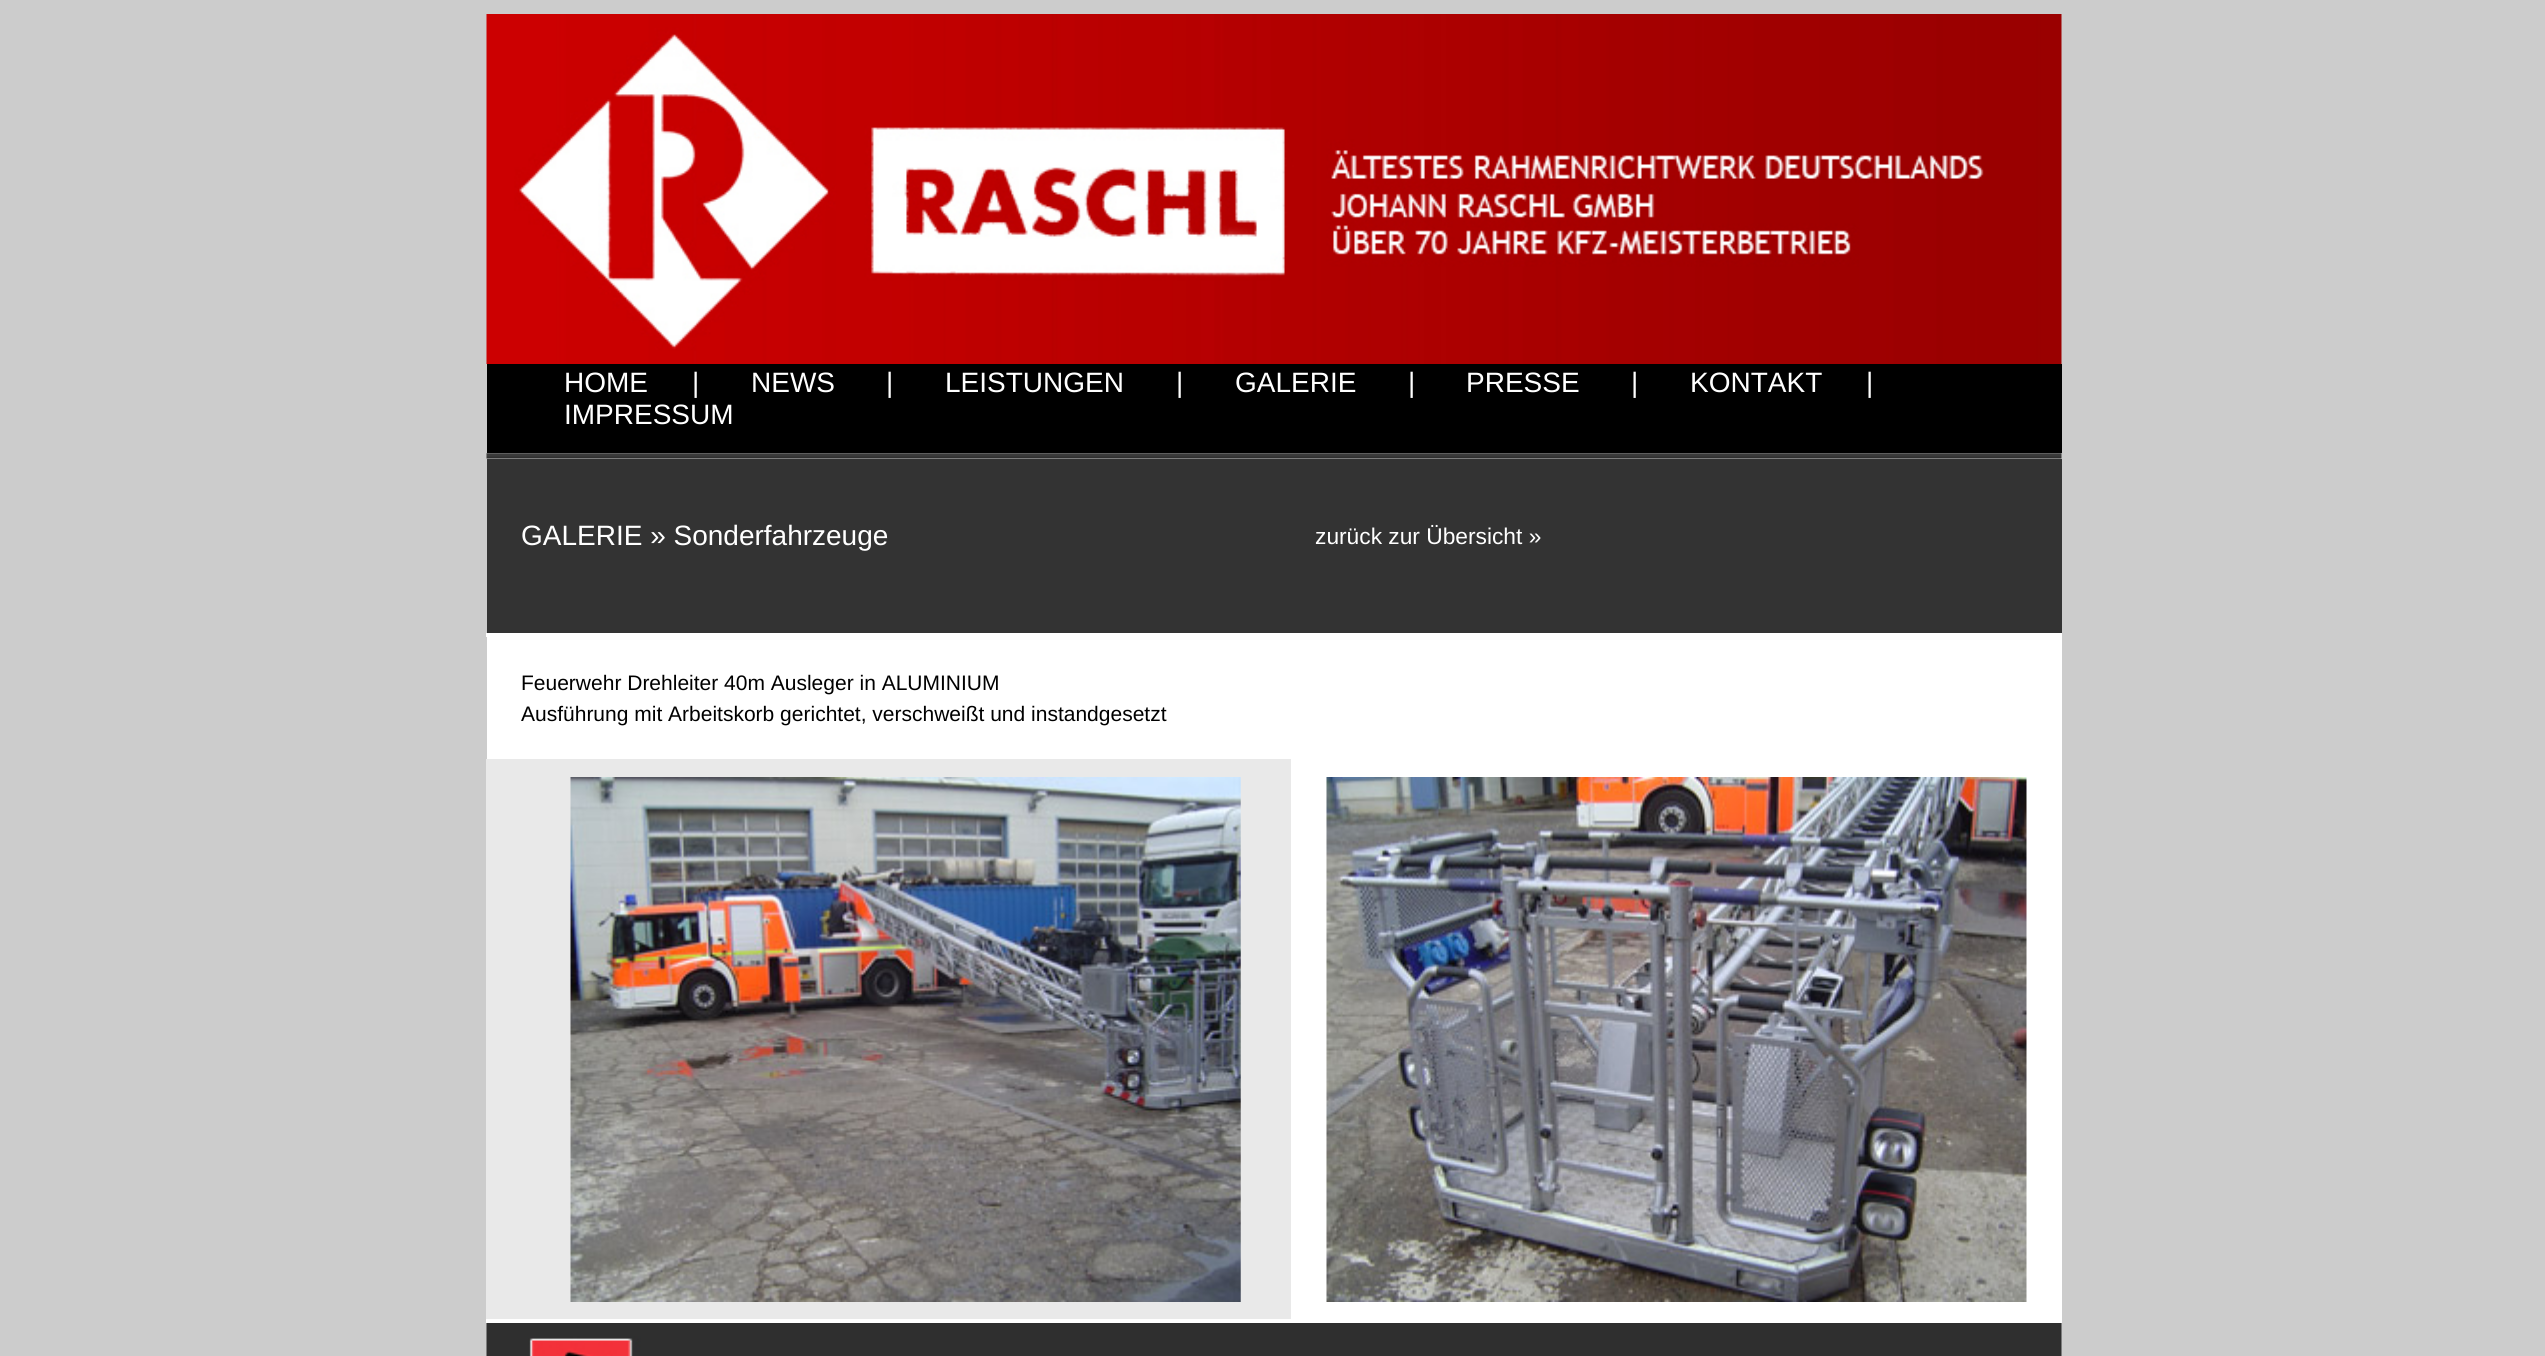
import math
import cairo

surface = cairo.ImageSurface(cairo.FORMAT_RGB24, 2545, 1356)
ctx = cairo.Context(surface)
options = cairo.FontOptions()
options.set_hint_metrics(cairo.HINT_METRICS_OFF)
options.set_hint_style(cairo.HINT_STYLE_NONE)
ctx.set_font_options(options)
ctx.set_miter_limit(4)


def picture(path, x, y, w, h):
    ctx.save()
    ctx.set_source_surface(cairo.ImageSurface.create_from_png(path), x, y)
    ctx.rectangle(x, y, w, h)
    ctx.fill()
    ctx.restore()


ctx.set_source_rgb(0.8, 0.8, 0.8)
ctx.paint()
picture("img1.png", 486, 14, 1576, 350)
ctx.set_source_rgb(0, 0, 0)
ctx.rectangle(487, 364, 1575, 89)
ctx.fill()
ctx.select_font_face("Liberation Sans")
ctx.set_font_size(28)
ctx.set_source_rgb(1, 1, 1)
ctx.move_to(564, 392)
ctx.show_text("HOME")
ctx.move_to(692, 392)
ctx.show_text("|")
ctx.move_to(751, 392)
ctx.show_text("NEWS")
ctx.move_to(886, 392)
ctx.show_text("|")
ctx.move_to(945, 392)
ctx.show_text("LEISTUNGEN")
ctx.move_to(1176, 392)
ctx.show_text("|")
ctx.move_to(1235, 392)
ctx.show_text("GALERIE")
ctx.move_to(1408, 392)
ctx.show_text("|")
ctx.move_to(1466, 392)
ctx.show_text("PRESSE")
ctx.move_to(1631, 392)
ctx.show_text("|")
ctx.move_to(1690, 392)
ctx.show_text("KONTAKT")
ctx.move_to(1866, 392)
ctx.show_text("|")
ctx.move_to(564, 424)
ctx.show_text("IMPRESSUM")
picture("img2.png", 486, 453, 1576, 6)
ctx.set_source_rgb(0.2, 0.2, 0.2)
ctx.rectangle(487, 459, 1575, 174)
ctx.fill()
ctx.set_source_rgb(1, 1, 1)
ctx.move_to(521, 545)
ctx.show_text("GALERIE » Sonderfahrzeuge")
ctx.set_font_size(22.75)
ctx.move_to(1315, 544)
ctx.show_text("zurück zur Übersicht »")
ctx.rectangle(486, 633, 1576, 4)
ctx.fill()
ctx.rectangle(487, 637, 1575, 122)
ctx.fill()
ctx.set_font_size(21)
ctx.set_source_rgb(0, 0, 0)
ctx.move_to(521, 690)
ctx.show_text("Feuerwehr Drehleiter 40m Ausleger in ALUMINIUM")
ctx.move_to(521, 721)
ctx.show_text("Ausführung mit Arbeitskorb gerichtet, verschweißt und instandgesetzt")
ctx.set_source_rgb(0.914, 0.914, 0.914)
ctx.rectangle(486, 759, 805, 560)
ctx.fill()
picture("img3.png", 570, 777, 671, 525)
ctx.set_source_rgb(1, 1, 1)
ctx.rectangle(1291, 759, 771, 560)
ctx.fill()
picture("img4.png", 1326, 777, 701, 525)
ctx.rectangle(486, 1319, 1576, 4)
ctx.fill()
picture("img5.png", 486, 1323, 1576, 33)
surface.write_to_png("page.png")
